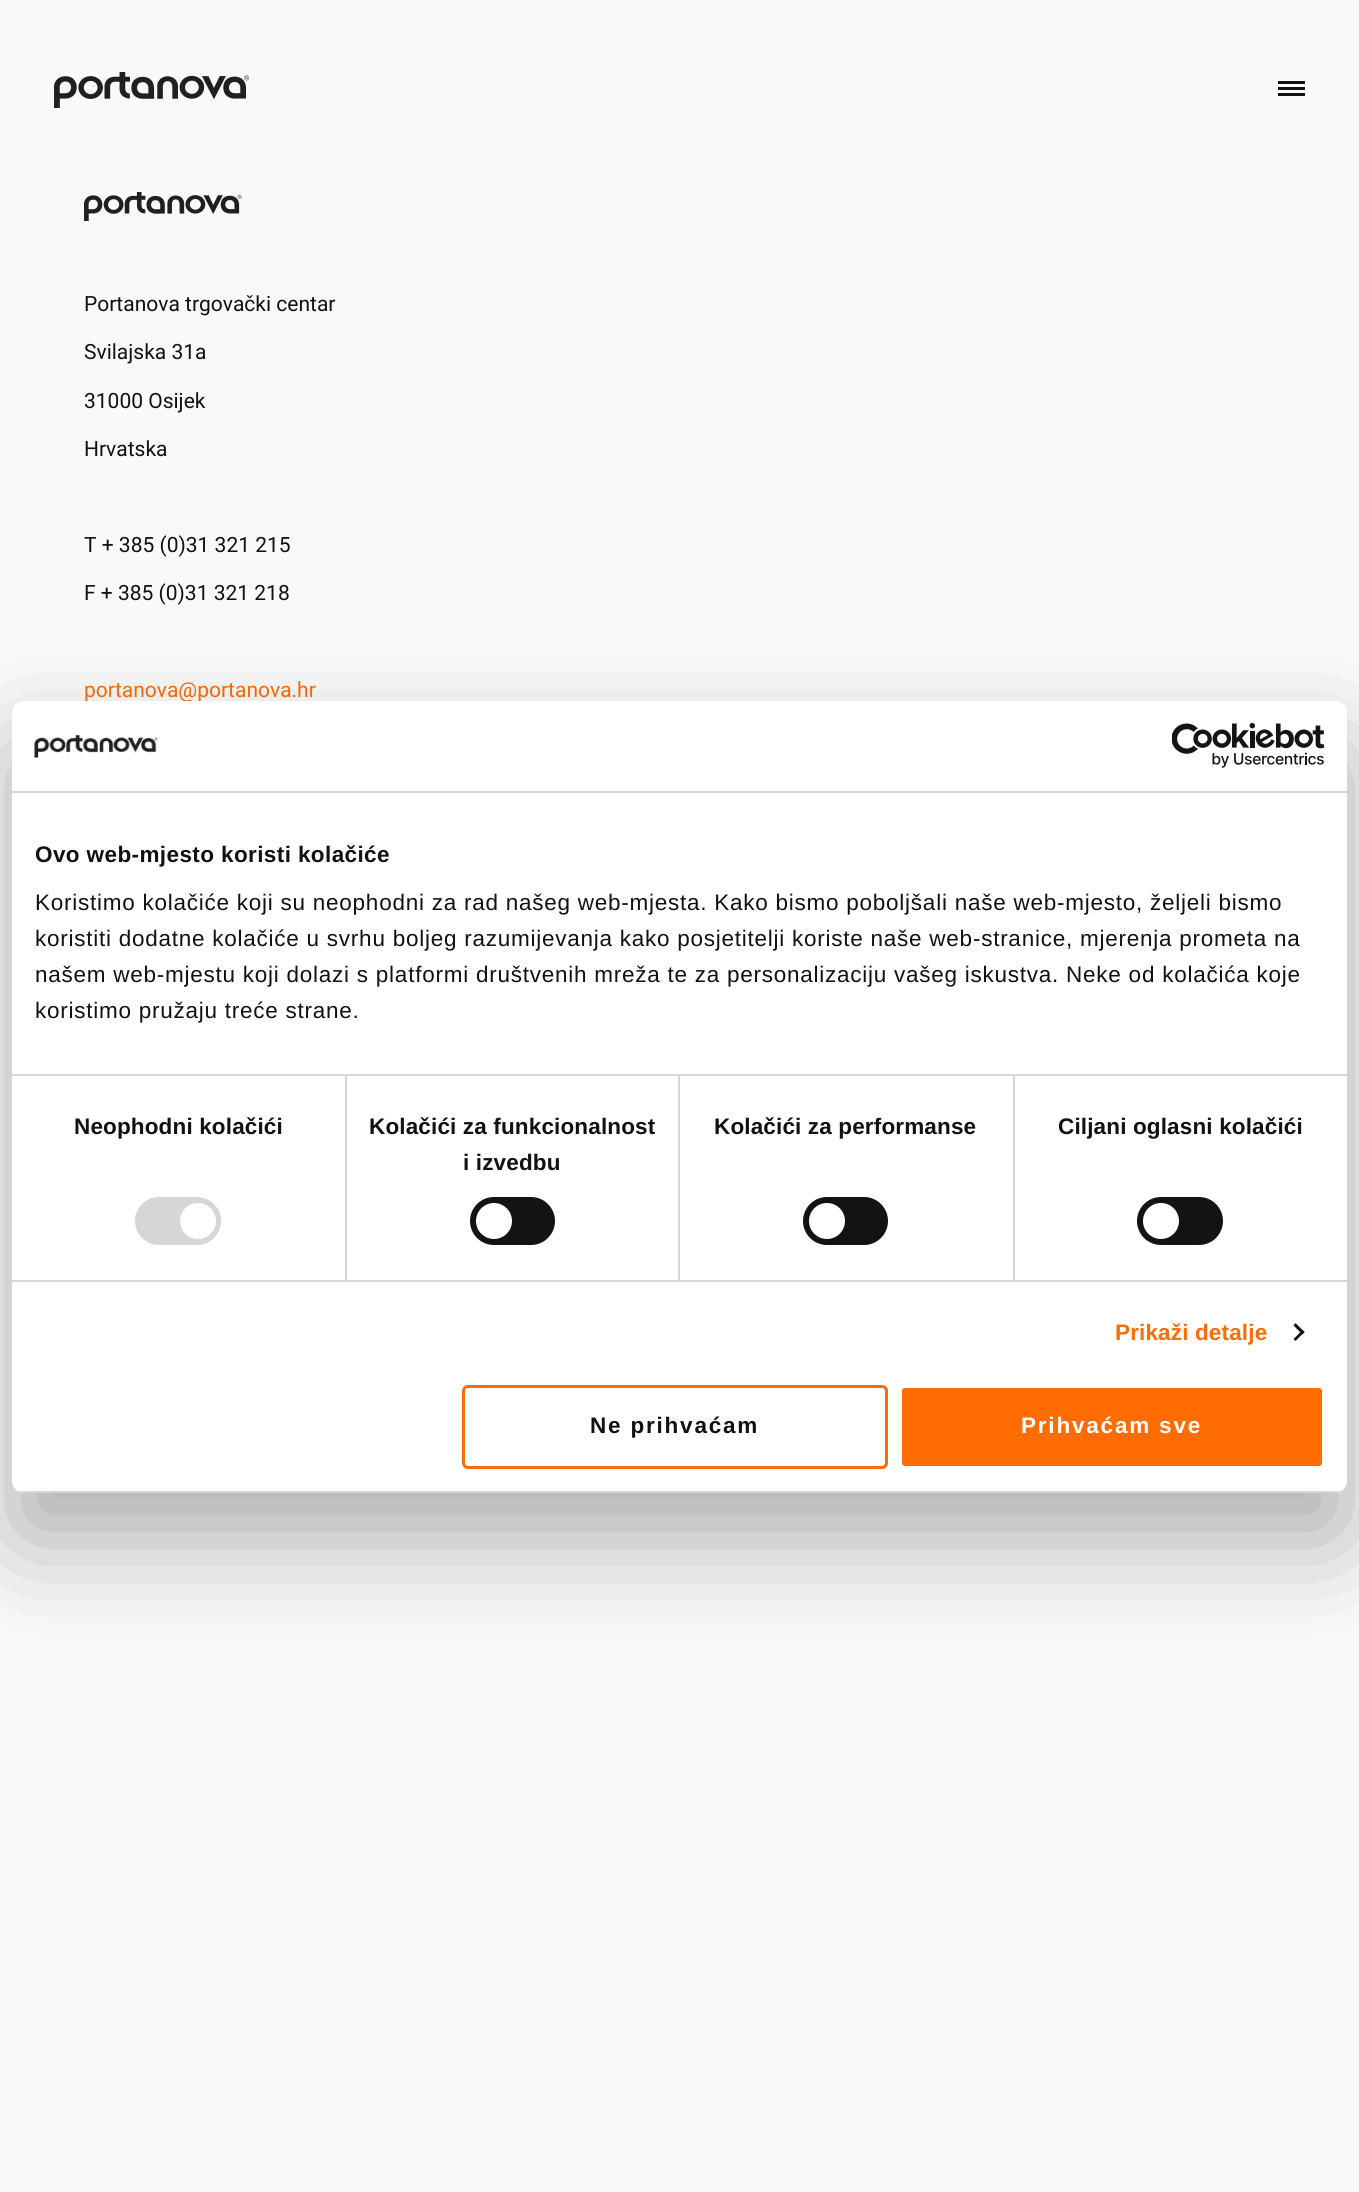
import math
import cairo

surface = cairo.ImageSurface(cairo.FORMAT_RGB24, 1359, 2192)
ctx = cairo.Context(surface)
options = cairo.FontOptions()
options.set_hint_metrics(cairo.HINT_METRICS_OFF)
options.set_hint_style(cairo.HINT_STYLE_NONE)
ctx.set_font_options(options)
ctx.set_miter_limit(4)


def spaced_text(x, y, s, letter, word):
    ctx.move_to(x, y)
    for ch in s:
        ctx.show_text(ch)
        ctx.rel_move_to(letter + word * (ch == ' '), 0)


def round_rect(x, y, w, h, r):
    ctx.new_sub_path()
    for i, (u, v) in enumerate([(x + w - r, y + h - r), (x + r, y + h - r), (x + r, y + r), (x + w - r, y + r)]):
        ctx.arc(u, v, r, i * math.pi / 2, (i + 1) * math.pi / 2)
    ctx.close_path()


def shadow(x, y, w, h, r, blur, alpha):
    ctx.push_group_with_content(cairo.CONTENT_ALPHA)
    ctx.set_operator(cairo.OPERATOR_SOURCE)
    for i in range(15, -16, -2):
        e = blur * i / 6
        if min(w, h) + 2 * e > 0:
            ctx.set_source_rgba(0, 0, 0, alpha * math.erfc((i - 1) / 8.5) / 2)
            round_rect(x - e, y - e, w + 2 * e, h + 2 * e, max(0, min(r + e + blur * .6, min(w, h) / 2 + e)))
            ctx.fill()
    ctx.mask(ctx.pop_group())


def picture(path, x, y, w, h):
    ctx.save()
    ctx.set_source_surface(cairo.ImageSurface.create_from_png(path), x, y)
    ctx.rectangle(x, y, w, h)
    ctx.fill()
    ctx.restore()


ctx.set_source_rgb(0.973, 0.973, 0.973)
ctx.paint()
picture("img1.png", 54, 72, 195, 36)
ctx.set_source_rgb(0.067, 0.067, 0.067)
ctx.rectangle(1278, 87, 27, 3)
ctx.fill()
ctx.rectangle(1278, 81, 27, 3)
ctx.fill()
ctx.rectangle(1278, 93, 27, 3)
ctx.fill()
picture("img2.png", 84, 192, 158, 29)
ctx.select_font_face("Roboto")
ctx.set_font_size(21)
ctx.move_to(84, 311)
ctx.show_text("Portanova trgovački centar")
ctx.move_to(84, 359)
ctx.show_text("Svilajska 31a")
ctx.move_to(84, 408)
ctx.show_text("31000 Osijek")
ctx.move_to(84, 456)
ctx.show_text("Hrvatska")
ctx.move_to(84, 552)
ctx.show_text("T + 385 (0)31 321 215")
ctx.move_to(84, 600)
ctx.show_text("F + 385 (0)31 321 218")
ctx.set_source_rgb(0.996, 0.424, 0.008)
ctx.move_to(84, 697)
ctx.show_text("portanova@portanova.hr")
ctx.set_source_rgb(0, 0, 0)
shadow(12, 749, 1335, 792, 12, 51, 0.3)
ctx.set_source_rgb(1, 1, 1)
round_rect(12, 701, 1335, 792, 12)
ctx.fill()
ctx.set_source_rgb(0.839, 0.839, 0.839)
ctx.rectangle(12, 791, 1335, 2)
ctx.fill()
picture("img3.png", 34, 735, 124, 23)
picture("img4.png", 1172, 723, 153, 45)
ctx.rectangle(12, 1074, 1335, 2)
ctx.fill()
ctx.select_font_face("Liberation Sans", cairo.FONT_SLANT_NORMAL, cairo.FONT_WEIGHT_BOLD)
ctx.set_font_size(22.5)
ctx.set_source_rgb(0.067, 0.067, 0.067)
spaced_text(35, 862, "Ovo web-mjesto koristi kolačiće", 0.4, 0)
ctx.select_font_face("Liberation Sans")
spaced_text(35, 910, "Koristimo kolačiće koji su neophodni za rad našeg web-mjesta. Kako bismo poboljšali naše web-mjesto, željeli bismo", 0.75, 0)
spaced_text(35, 946, "koristiti dodatne kolačiće u svrhu boljeg razumijevanja kako posjetitelji koriste naše web-stranice, mjerenja prometa na", 0.75, 0)
spaced_text(35, 982, "našem web-mjestu koji dolazi s platformi društvenih mreža te za personalizaciju vašeg iskustva. Neke od kolačića koje", 0.75, 0)
spaced_text(35, 1018, "koristimo pružaju treće strane.", 0.75, 0)
ctx.set_source_rgb(0.839, 0.839, 0.839)
ctx.rectangle(12, 1280, 1335, 2)
ctx.fill()
ctx.rectangle(345, 1076, 2, 204)
ctx.fill()
ctx.select_font_face("Liberation Sans", cairo.FONT_SLANT_NORMAL, cairo.FONT_WEIGHT_BOLD)
ctx.set_source_rgb(0.067, 0.067, 0.067)
spaced_text(74, 1134, "Neophodni kolačići", 0.15, 0)
ctx.set_source_rgb(0.839, 0.839, 0.839)
round_rect(135, 1197, 86, 48, 24)
ctx.fill()
ctx.set_source_rgb(1, 1, 1)
ctx.arc(198, 1221, 18, 0, 2 * math.pi)
ctx.fill()
ctx.set_source_rgb(0.839, 0.839, 0.839)
ctx.rectangle(678, 1076, 2, 204)
ctx.fill()
ctx.set_source_rgb(0.067, 0.067, 0.067)
spaced_text(369, 1134, "Kolačići za funkcionalnost", 0.15, 0)
spaced_text(463, 1170, "i izvedbu", 0.15, 0)
ctx.set_source_rgb(0.078, 0.078, 0.078)
round_rect(470, 1197, 85, 48, 24)
ctx.fill()
ctx.set_source_rgb(1, 1, 1)
ctx.arc(494, 1221, 18, 0, 2 * math.pi)
ctx.fill()
ctx.set_source_rgb(0.839, 0.839, 0.839)
ctx.rectangle(1013, 1076, 2, 204)
ctx.fill()
ctx.set_source_rgb(0.067, 0.067, 0.067)
spaced_text(714, 1134, "Kolačići za performanse", 0.15, 0)
ctx.set_source_rgb(0.078, 0.078, 0.078)
round_rect(803, 1197, 85, 48, 24)
ctx.fill()
ctx.set_source_rgb(1, 1, 1)
ctx.arc(827, 1221, 18, 0, 2 * math.pi)
ctx.fill()
ctx.set_source_rgb(0.067, 0.067, 0.067)
spaced_text(1058, 1134, "Ciljani oglasni kolačići", 0.15, 0)
ctx.set_source_rgb(0.078, 0.078, 0.078)
round_rect(1137, 1197, 86, 48, 24)
ctx.fill()
ctx.set_source_rgb(1, 1, 1)
ctx.arc(1161, 1221, 18, 0, 2 * math.pi)
ctx.fill()
ctx.set_source_rgb(0.996, 0.424, 0.008)
spaced_text(1115, 1340, "Prikaži detalje", 0.15, 0)
ctx.set_source_rgb(0.078, 0.078, 0.078)
ctx.new_path()
ctx.move_to(1295.5, 1323)
ctx.line_to(1304.5, 1332)
ctx.line_to(1302.5, 1334.5)
ctx.line_to(1293.5, 1325.5)
ctx.close_path()
ctx.fill()
ctx.new_path()
ctx.move_to(1302.5, 1330)
ctx.line_to(1304.5, 1332)
ctx.line_to(1295.5, 1341)
ctx.line_to(1293.5, 1339)
ctx.close_path()
ctx.fill()
ctx.save()
round_rect(12, 701, 1335, 792, 12)
ctx.clip()
ctx.set_source_rgb(0.839, 0.839, 0.839)
ctx.rectangle(12, 1491, 1335, 2)
ctx.fill()
ctx.restore()
round_rect(463.5, 1386.5, 423, 81, 4.5)
ctx.set_source_rgb(0.996, 0.424, 0.008)
ctx.set_line_width(3)
ctx.stroke()
ctx.set_source_rgb(0.067, 0.067, 0.067)
spaced_text(590, 1433, "Ne prihvaćam", 1.8, 0)
ctx.set_source_rgb(0.996, 0.424, 0.008)
round_rect(900.5, 1386.5, 423, 81, 4.5)
ctx.fill_preserve()
ctx.set_source_rgb(1, 1, 1)
ctx.stroke()
spaced_text(1021, 1433, "Prihvaćam sve", 1.8, 0)
surface.write_to_png("page.png")
